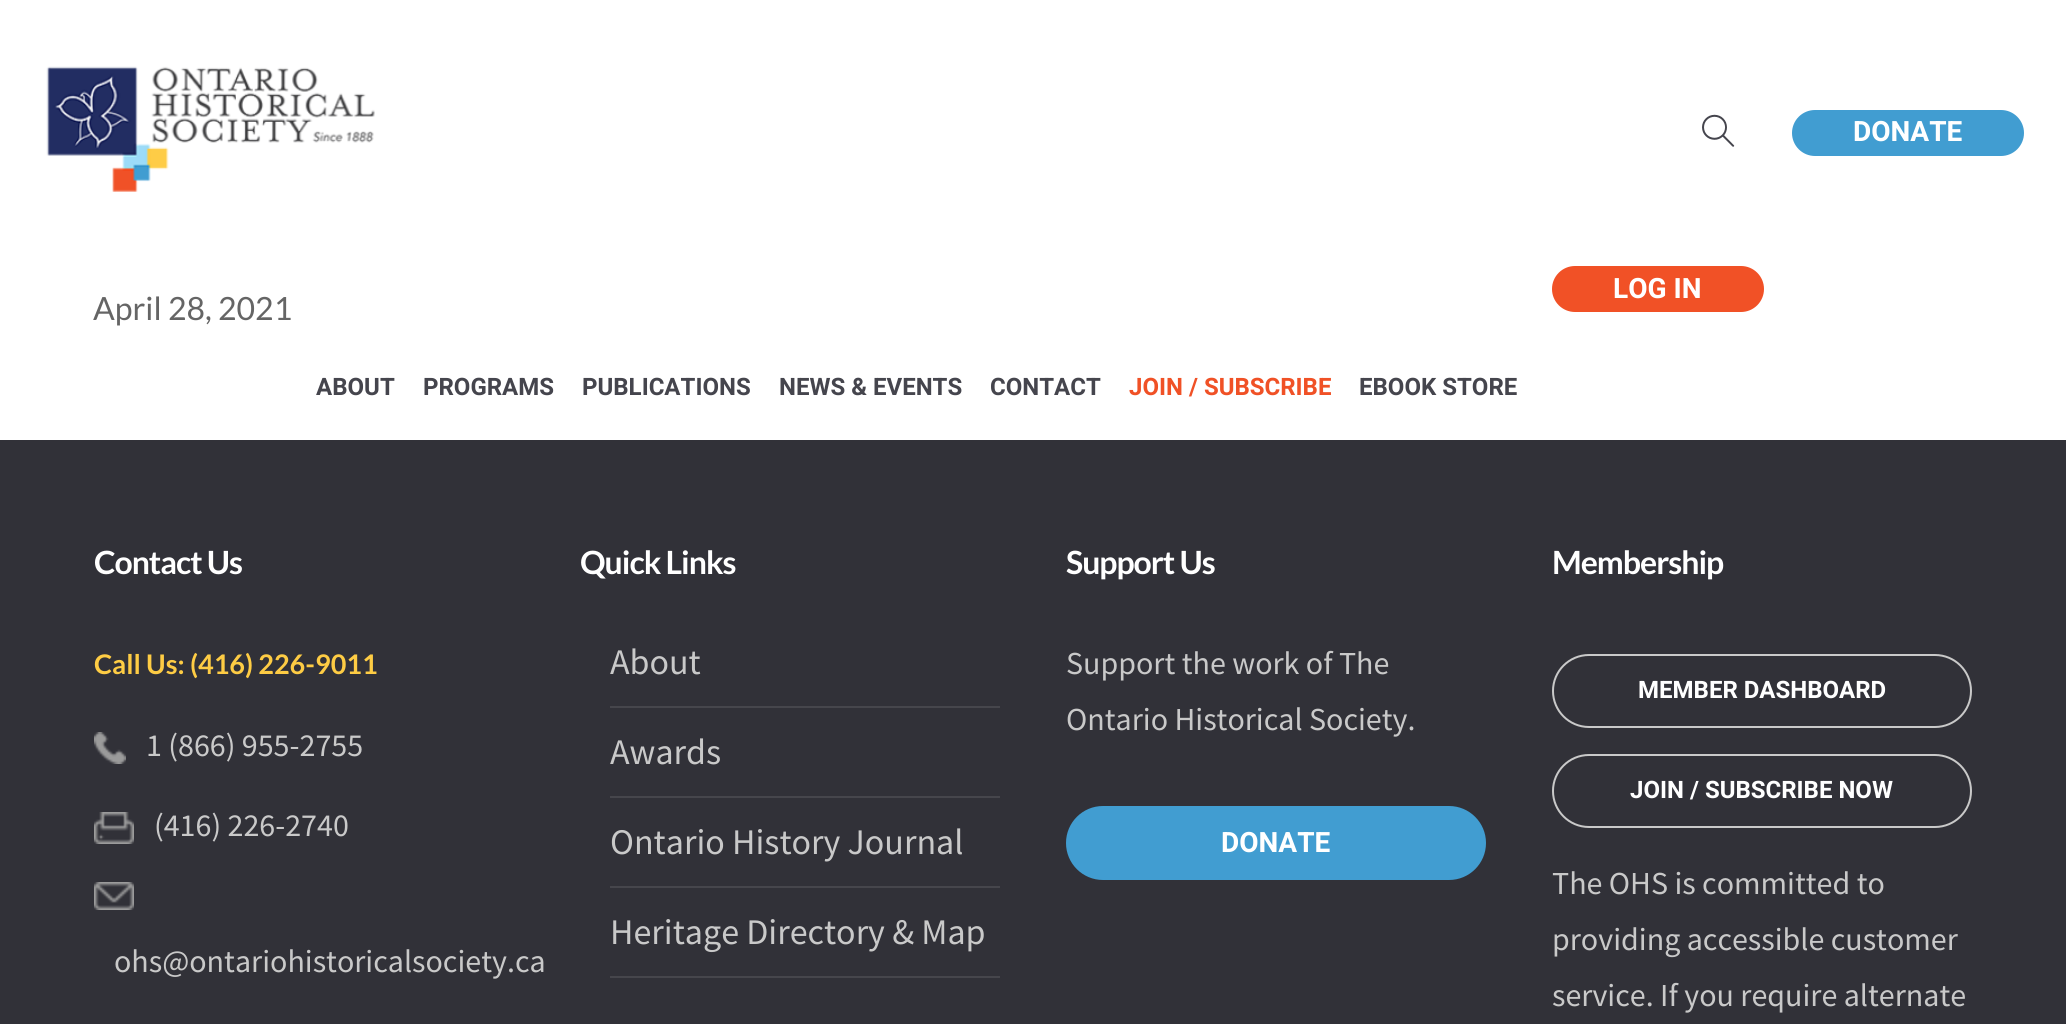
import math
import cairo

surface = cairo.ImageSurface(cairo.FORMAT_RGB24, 2066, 1024)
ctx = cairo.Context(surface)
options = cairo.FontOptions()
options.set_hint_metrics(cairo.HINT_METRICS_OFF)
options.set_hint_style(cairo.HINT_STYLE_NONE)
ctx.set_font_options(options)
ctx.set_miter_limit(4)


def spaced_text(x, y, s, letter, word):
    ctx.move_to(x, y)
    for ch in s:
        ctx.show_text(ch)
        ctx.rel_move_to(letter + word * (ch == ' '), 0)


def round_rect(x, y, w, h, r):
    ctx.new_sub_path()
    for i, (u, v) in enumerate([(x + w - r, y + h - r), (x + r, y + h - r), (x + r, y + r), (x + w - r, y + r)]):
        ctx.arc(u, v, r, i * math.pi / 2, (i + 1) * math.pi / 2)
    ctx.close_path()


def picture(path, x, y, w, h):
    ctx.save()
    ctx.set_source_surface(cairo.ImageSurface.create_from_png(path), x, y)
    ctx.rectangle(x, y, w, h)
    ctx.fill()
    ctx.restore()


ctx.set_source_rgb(1, 1, 1)
ctx.paint()
ctx.select_font_face("Lato")
ctx.set_font_size(32)
ctx.set_source_rgb(0.396, 0.396, 0.396)
ctx.move_to(93, 320)
ctx.show_text("April 28, 2021")
picture("img1.png", 46, 66, 329, 126)
picture("img2.png", 1702, 114, 33, 33)
ctx.set_source_rgb(0.255, 0.616, 0.82)
round_rect(1793, 111, 230, 44, 22)
ctx.fill_preserve()
ctx.stroke()
ctx.select_font_face("Heebo", cairo.FONT_SLANT_NORMAL, cairo.FONT_WEIGHT_BOLD)
ctx.set_font_size(28)
ctx.set_source_rgb(1, 1, 1)
ctx.move_to(1853, 141)
ctx.show_text("DONATE")
ctx.set_source_rgb(0.945, 0.318, 0.149)
round_rect(1553, 267, 210, 44, 22)
ctx.fill_preserve()
ctx.stroke()
ctx.set_source_rgb(1, 1, 1)
ctx.move_to(1613, 298)
ctx.show_text("LOG IN")
ctx.set_font_size(24)
ctx.set_source_rgb(0.271, 0.271, 0.302)
ctx.move_to(316, 395)
ctx.show_text("ABOUT")
ctx.move_to(423, 395)
ctx.show_text("PROGRAMS")
ctx.move_to(582, 395)
ctx.show_text("PUBLICATIONS")
ctx.move_to(779, 395)
ctx.show_text("NEWS & EVENTS")
ctx.move_to(990, 395)
ctx.show_text("CONTACT")
ctx.set_source_rgb(0.941, 0.318, 0.149)
ctx.move_to(1129, 395)
ctx.show_text("JOIN / SUBSCRIBE")
ctx.set_source_rgb(0.271, 0.271, 0.302)
ctx.move_to(1359, 395)
ctx.show_text("EBOOK STORE")
ctx.set_source_rgb(0.192, 0.192, 0.22)
ctx.rectangle(0, 440, 2066, 584)
ctx.fill()
ctx.select_font_face("Lato", cairo.FONT_SLANT_NORMAL, cairo.FONT_WEIGHT_BOLD)
ctx.set_font_size(32)
ctx.set_source_rgb(1, 1, 1)
spaced_text(94, 574, "Contact Us", -1, 0)
ctx.set_font_size(27)
ctx.set_source_rgb(0.996, 0.8, 0.267)
ctx.move_to(94, 674)
ctx.show_text("Call Us: (416) 226-9011")
picture("img3.png", 94, 732, 32, 32)
ctx.select_font_face("Source Sans Pro")
ctx.set_font_size(32)
ctx.set_source_rgb(0.788, 0.788, 0.788)
ctx.move_to(146, 756)
ctx.show_text("1 (866) 955-2755")
picture("img4.png", 94, 812, 40, 32)
ctx.move_to(154, 836)
ctx.show_text("(416) 226-2740")
picture("img5.png", 94, 882, 40, 28)
ctx.move_to(114, 972)
ctx.show_text("ohs@ontariohistoricalsociety.ca")
ctx.select_font_face("Lato", cairo.FONT_SLANT_NORMAL, cairo.FONT_WEIGHT_BOLD)
ctx.set_source_rgb(1, 1, 1)
spaced_text(580, 574, "Quick Links", -1, 0)
ctx.select_font_face("Source Sans Pro")
ctx.set_font_size(36)
ctx.set_source_rgb(0.788, 0.788, 0.788)
ctx.move_to(610, 674)
ctx.show_text("About")
ctx.set_source_rgb(0.275, 0.275, 0.298)
ctx.rectangle(610, 706, 390, 2)
ctx.fill()
ctx.set_source_rgb(0.788, 0.788, 0.788)
ctx.move_to(610, 764)
ctx.show_text("Awards")
ctx.set_source_rgb(0.275, 0.275, 0.298)
ctx.rectangle(610, 796, 390, 2)
ctx.fill()
ctx.set_source_rgb(0.788, 0.788, 0.788)
ctx.move_to(610, 854)
ctx.show_text("Ontario History Journal")
ctx.set_source_rgb(0.275, 0.275, 0.298)
ctx.rectangle(610, 886, 390, 2)
ctx.fill()
ctx.set_source_rgb(0.788, 0.788, 0.788)
ctx.move_to(610, 944)
ctx.show_text("Heritage Directory & Map")
ctx.set_source_rgb(0.275, 0.275, 0.298)
ctx.rectangle(610, 976, 390, 2)
ctx.fill()
ctx.select_font_face("Lato", cairo.FONT_SLANT_NORMAL, cairo.FONT_WEIGHT_BOLD)
ctx.set_font_size(32)
ctx.set_source_rgb(1, 1, 1)
spaced_text(1066, 574, "Support Us", -1, 0)
ctx.select_font_face("Source Sans Pro")
ctx.set_source_rgb(0.788, 0.788, 0.788)
ctx.move_to(1066, 674)
ctx.show_text("Support the work of The")
ctx.move_to(1066, 730)
ctx.show_text("Ontario Historical Society.")
ctx.set_source_rgb(0.255, 0.616, 0.82)
round_rect(1067, 807, 418, 72, 36)
ctx.fill_preserve()
ctx.stroke()
ctx.select_font_face("Heebo", cairo.FONT_SLANT_NORMAL, cairo.FONT_WEIGHT_BOLD)
ctx.set_font_size(28)
ctx.set_source_rgb(1, 1, 1)
ctx.move_to(1221, 852)
ctx.show_text("DONATE")
ctx.select_font_face("Lato", cairo.FONT_SLANT_NORMAL, cairo.FONT_WEIGHT_BOLD)
ctx.set_font_size(32)
spaced_text(1552, 574, "Membership", -1, 0)
round_rect(1553, 655, 418, 72, 36)
ctx.set_source_rgb(0.788, 0.788, 0.788)
ctx.stroke()
ctx.select_font_face("Heebo", cairo.FONT_SLANT_NORMAL, cairo.FONT_WEIGHT_BOLD)
ctx.set_font_size(24)
ctx.set_source_rgb(1, 1, 1)
ctx.move_to(1638, 698)
ctx.show_text("MEMBER DASHBOARD")
round_rect(1553, 755, 418, 72, 36)
ctx.set_source_rgb(0.788, 0.788, 0.788)
ctx.stroke()
ctx.set_source_rgb(1, 1, 1)
ctx.move_to(1630, 798)
ctx.show_text("JOIN / SUBSCRIBE NOW")
ctx.select_font_face("Source Sans Pro")
ctx.set_font_size(32)
ctx.set_source_rgb(0.788, 0.788, 0.788)
ctx.move_to(1552, 894)
ctx.show_text("The OHS is committed to")
ctx.move_to(1552, 950)
ctx.show_text("providing accessible customer")
ctx.move_to(1552, 1006)
ctx.show_text("service. If you require alternate")
surface.write_to_png("page.png")
